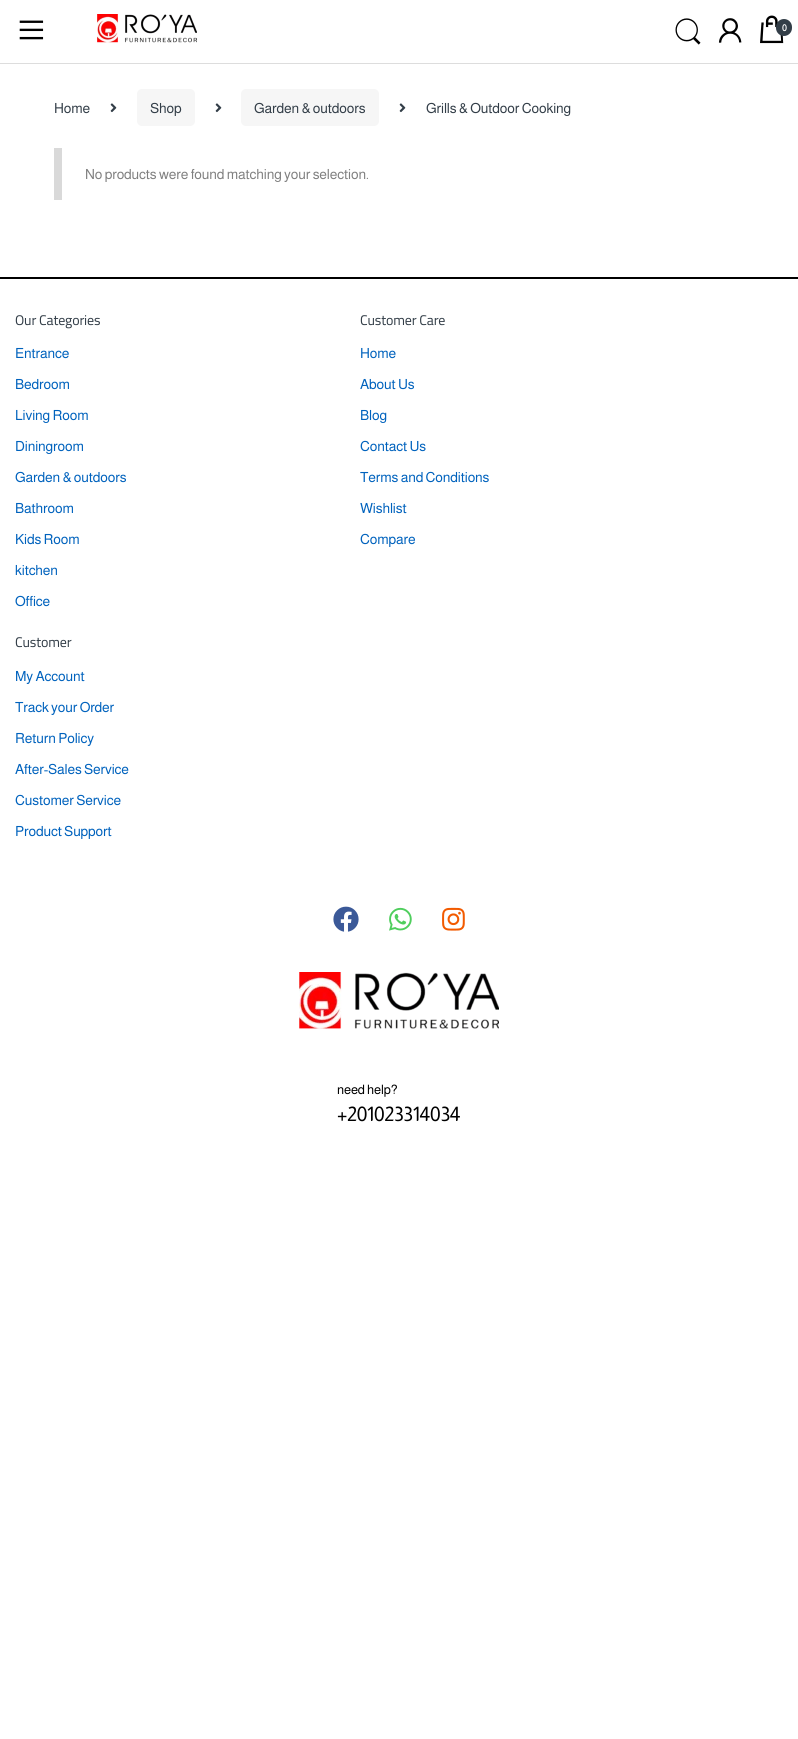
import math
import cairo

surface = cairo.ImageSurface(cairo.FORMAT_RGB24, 798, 1739)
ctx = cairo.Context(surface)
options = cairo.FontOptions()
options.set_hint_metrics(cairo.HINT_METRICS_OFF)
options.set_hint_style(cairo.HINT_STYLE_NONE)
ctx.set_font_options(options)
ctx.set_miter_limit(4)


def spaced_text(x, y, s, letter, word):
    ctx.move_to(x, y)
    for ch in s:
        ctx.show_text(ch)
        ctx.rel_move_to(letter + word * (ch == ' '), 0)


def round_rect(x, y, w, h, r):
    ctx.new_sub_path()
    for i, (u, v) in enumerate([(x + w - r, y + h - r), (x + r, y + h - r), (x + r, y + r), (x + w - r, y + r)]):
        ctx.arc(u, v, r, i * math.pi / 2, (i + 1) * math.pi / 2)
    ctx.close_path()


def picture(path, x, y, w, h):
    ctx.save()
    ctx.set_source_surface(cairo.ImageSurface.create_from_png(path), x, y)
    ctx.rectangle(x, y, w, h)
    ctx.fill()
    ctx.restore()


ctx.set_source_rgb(1, 1, 1)
ctx.paint()
ctx.set_source_rgb(0.867, 0.867, 0.867)
ctx.rectangle(0, 63, 798, 1)
ctx.fill()
picture("img1.png", 19, 20, 25, 20)
picture("img2.png", 97, 14, 100, 29)
picture("img3.png", 675, 18, 26, 27)
picture("img4.png", 718, 18, 24, 25)
picture("img5.png", 760, 15, 24, 29)
ctx.set_source_rgb(0.2, 0.243, 0.282)
round_rect(776, 19, 16, 17, 8)
ctx.fill()
ctx.select_font_face("Almarai", cairo.FONT_SLANT_NORMAL, cairo.FONT_WEIGHT_BOLD)
ctx.set_font_size(9)
ctx.set_source_rgb(1, 1, 1)
spaced_text(782, 31, "0", -0.15, 0)
ctx.select_font_face("Almarai")
ctx.set_font_size(14)
ctx.set_source_rgb(0.2, 0.243, 0.282)
spaced_text(54, 113, "Home", -0.15, 0)
picture("img6.png", 110, 103, 7, 10)
ctx.set_source_rgb(0.961, 0.961, 0.961)
round_rect(137, 89, 58, 37, 5)
ctx.fill()
ctx.set_source_rgb(0.2, 0.243, 0.282)
spaced_text(150, 113, "Shop", -0.15, 0)
picture("img6.png", 215, 103, 7, 10)
ctx.set_source_rgb(0.961, 0.961, 0.961)
round_rect(241, 89, 138, 37, 5)
ctx.fill()
ctx.set_source_rgb(0.2, 0.243, 0.282)
spaced_text(254, 113, "Garden & outdoors", -0.15, 0)
picture("img6.png", 399, 103, 7, 10)
spaced_text(426, 113, "Grills & Outdoor Cooking", -0.15, 0)
ctx.set_source_rgb(0.851, 0.851, 0.851)
ctx.rectangle(54, 148, 8, 52)
ctx.fill()
ctx.set_source_rgb(0.502, 0.502, 0.502)
spaced_text(85, 179, "No products were found matching your selection.", -0.15, 0)
ctx.set_source_rgb(0, 0, 0)
ctx.rectangle(0, 277, 798, 2)
ctx.fill()
ctx.select_font_face("Cairo")
ctx.set_source_rgb(0.2, 0.243, 0.282)
spaced_text(15, 325, "Our Categories", -0.15, 0)
ctx.select_font_face("Almarai")
ctx.set_source_rgb(0, 0.384, 0.741)
spaced_text(15, 358, "Entrance", -0.15, 0)
spaced_text(15, 389, "Bedroom", -0.15, 0)
spaced_text(15, 420, "Living Room", -0.15, 0)
spaced_text(15, 451, "Diningroom", -0.15, 0)
spaced_text(15, 482, "Garden & outdoors", -0.15, 0)
spaced_text(15, 513, "Bathroom", -0.15, 0)
spaced_text(15, 544, "Kids Room", -0.15, 0)
spaced_text(15, 575, "kitchen", -0.15, 0)
spaced_text(15, 606, "Office", -0.15, 0)
ctx.select_font_face("Cairo")
ctx.set_source_rgb(0.2, 0.243, 0.282)
spaced_text(360, 325, "Customer Care", -0.15, 0)
ctx.select_font_face("Almarai")
ctx.set_source_rgb(0, 0.384, 0.741)
spaced_text(360, 358, "Home", -0.15, 0)
spaced_text(360, 389, "About Us", -0.15, 0)
spaced_text(360, 420, "Blog", -0.15, 0)
spaced_text(360, 451, "Contact Us", -0.15, 0)
spaced_text(360, 482, "Terms and Conditions", -0.15, 0)
spaced_text(360, 513, "Wishlist", -0.15, 0)
spaced_text(360, 544, "Compare", -0.15, 0)
ctx.select_font_face("Cairo")
ctx.set_source_rgb(0.2, 0.243, 0.282)
spaced_text(15, 647, "Customer", -0.15, 0)
ctx.select_font_face("Almarai")
ctx.set_source_rgb(0, 0.384, 0.741)
spaced_text(15, 681, "My Account", -0.15, 0)
spaced_text(15, 712, "Track your Order", -0.15, 0)
spaced_text(15, 743, "Return Policy", -0.15, 0)
spaced_text(15, 774, "After-Sales Service", -0.15, 0)
spaced_text(15, 805, "Customer Service", -0.15, 0)
spaced_text(15, 836, "Product Support", -0.15, 0)
picture("img7.png", 333, 906, 26, 26)
picture("img8.png", 389, 907, 23, 24)
picture("img9.png", 442, 907, 23, 24)
picture("img10.png", 299, 972, 200, 57)
ctx.set_font_size(13)
ctx.set_source_rgb(0, 0, 0)
spaced_text(337, 1094, "need help?", -0.15, 0)
ctx.set_font_size(20)
spaced_text(337, 1121, "+201023314034", -0.15, 0)
surface.write_to_png("page.png")
